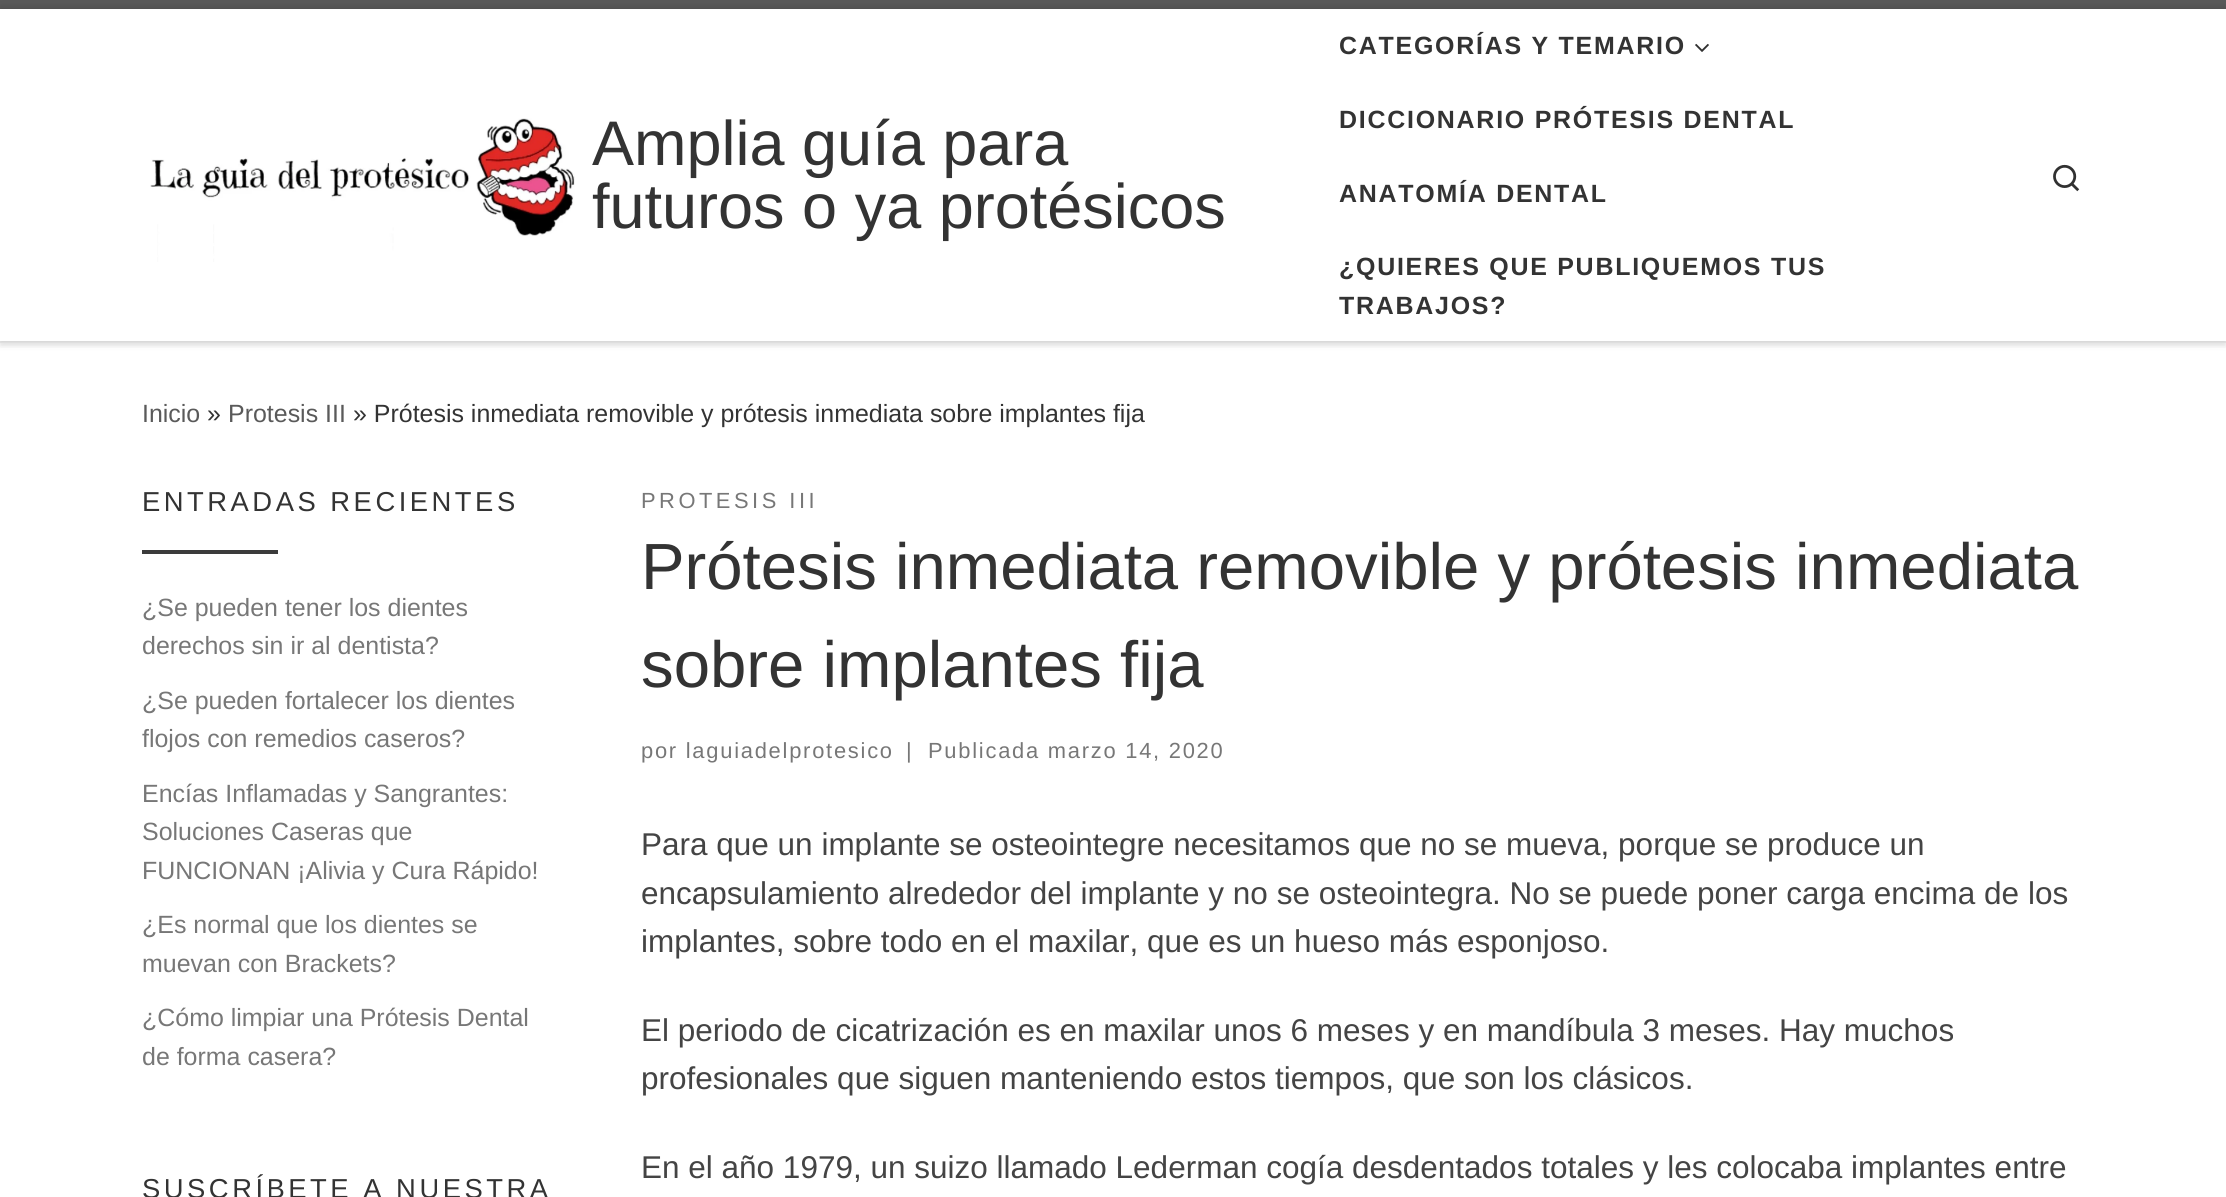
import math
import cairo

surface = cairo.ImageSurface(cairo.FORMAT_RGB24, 2226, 1197)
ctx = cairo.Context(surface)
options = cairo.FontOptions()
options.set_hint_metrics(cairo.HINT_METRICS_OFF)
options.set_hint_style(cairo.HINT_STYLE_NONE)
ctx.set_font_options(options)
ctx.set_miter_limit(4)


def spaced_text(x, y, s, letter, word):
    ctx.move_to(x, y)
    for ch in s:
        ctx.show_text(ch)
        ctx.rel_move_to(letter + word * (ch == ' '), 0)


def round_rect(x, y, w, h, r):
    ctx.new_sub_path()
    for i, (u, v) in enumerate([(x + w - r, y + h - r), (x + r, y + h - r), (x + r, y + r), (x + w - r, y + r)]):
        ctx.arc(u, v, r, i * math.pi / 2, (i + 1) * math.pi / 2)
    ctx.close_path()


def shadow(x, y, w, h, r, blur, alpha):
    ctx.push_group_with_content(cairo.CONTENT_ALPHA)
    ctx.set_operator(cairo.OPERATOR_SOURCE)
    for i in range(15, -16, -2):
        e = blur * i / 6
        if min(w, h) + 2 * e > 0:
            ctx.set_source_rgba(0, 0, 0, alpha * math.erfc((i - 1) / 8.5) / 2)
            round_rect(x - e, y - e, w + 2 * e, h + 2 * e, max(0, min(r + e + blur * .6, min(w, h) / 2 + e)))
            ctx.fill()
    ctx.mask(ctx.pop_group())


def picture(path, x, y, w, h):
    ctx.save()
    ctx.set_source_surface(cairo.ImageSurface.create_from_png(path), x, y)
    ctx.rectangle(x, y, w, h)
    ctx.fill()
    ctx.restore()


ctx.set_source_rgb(1, 1, 1)
ctx.paint()
ctx.save()
ctx.rectangle(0, 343, 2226, 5)
ctx.clip()
ctx.set_source_rgb(0.4, 0.4, 0.4)
shadow(0, 4, 2226, 343, 0, 2, 0.08)
ctx.restore()
ctx.set_source_rgb(0.353, 0.353, 0.353)
ctx.rectangle(0, 0, 2226, 9)
ctx.fill()
ctx.set_source_rgb(0.937, 0.937, 0.937)
ctx.rectangle(0, 341, 2226, 2)
ctx.fill()
ctx.save()
ctx.set_fill_rule(cairo.FILL_RULE_EVEN_ODD)
ctx.new_path()
ctx.move_to(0, 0)
ctx.line_to(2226, 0)
ctx.line_to(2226, 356)
ctx.line_to(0, 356)
ctx.close_path()
ctx.move_to(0, 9)
ctx.line_to(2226, 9)
ctx.line_to(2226, 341)
ctx.line_to(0, 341)
ctx.close_path()
ctx.clip()
ctx.set_source_rgb(0, 0, 0)
shadow(0, 9, 2226, 332, 0, 4.5, 0.2)
ctx.restore()
picture("img1.png", 150, 118, 425, 144)
ctx.select_font_face("Liberation Sans")
ctx.set_font_size(63)
ctx.set_source_rgb(0.2, 0.2, 0.2)
ctx.move_to(592, 165)
ctx.show_text("Amplia guía para")
ctx.move_to(592, 228)
ctx.show_text("futuros o ya protésicos")
ctx.select_font_face("Liberation Sans", cairo.FONT_SLANT_NORMAL, cairo.FONT_WEIGHT_BOLD)
ctx.set_font_size(24.95)
spaced_text(1339, 54, "CATEGORÍAS Y TEMARIO", 1.75, 0)
picture("img2.png", 1695, 43, 14, 9)
spaced_text(1339, 128, "DICCIONARIO PRÓTESIS DENTAL", 1.75, 0)
spaced_text(1339, 202, "ANATOMÍA DENTAL", 1.75, 0)
spaced_text(1339, 275, "¿QUIERES QUE PUBLIQUEMOS TUS", 1.75, 0)
spaced_text(1339, 314, "TRABAJOS?", 1.75, 0)
picture("img3.png", 2053, 164, 27, 28)
ctx.select_font_face("Liberation Sans")
ctx.set_source_rgb(0.353, 0.353, 0.353)
ctx.move_to(142, 422)
ctx.show_text("Inicio")
ctx.set_source_rgb(0.2, 0.2, 0.2)
ctx.move_to(207, 422)
ctx.show_text("»")
ctx.set_source_rgb(0.353, 0.353, 0.353)
ctx.move_to(228, 422)
ctx.show_text("Protesis III")
ctx.set_source_rgb(0.2, 0.2, 0.2)
ctx.move_to(353, 422)
ctx.show_text("» Prótesis inmediata removible y prótesis inmediata sobre implantes fija")
ctx.set_font_size(27.4)
spaced_text(142, 511, "ENTRADAS RECIENTES", 3.5, 0)
ctx.set_source_rgb(0.231, 0.231, 0.231)
ctx.rectangle(142, 550, 136, 4)
ctx.fill()
ctx.set_font_size(24.95)
ctx.set_source_rgb(0.467, 0.467, 0.467)
ctx.move_to(142, 616)
ctx.show_text("¿Se pueden tener los dientes")
ctx.move_to(142, 654)
ctx.show_text("derechos sin ir al dentista?")
ctx.move_to(142, 709)
ctx.show_text("¿Se pueden fortalecer los dientes")
ctx.move_to(142, 747)
ctx.show_text("flojos con remedios caseros?")
ctx.move_to(142, 802)
ctx.show_text("Encías Inflamadas y Sangrantes:")
ctx.move_to(142, 840)
ctx.show_text("Soluciones Caseras que")
ctx.move_to(142, 879)
ctx.show_text("FUNCIONAN ¡Alivia y Cura Rápido!")
ctx.move_to(142, 933)
ctx.show_text("¿Es normal que los dientes se")
ctx.move_to(142, 972)
ctx.show_text("muevan con Brackets?")
ctx.move_to(142, 1026)
ctx.show_text("¿Cómo limpiar una Prótesis Dental")
ctx.move_to(142, 1065)
ctx.show_text("de forma casera?")
ctx.set_font_size(27.4)
ctx.set_source_rgb(0.2, 0.2, 0.2)
spaced_text(142, 1198, "SUSCRÍBETE A NUESTRA", 3.5, 0)
ctx.set_font_size(21.9)
ctx.set_source_rgb(0.467, 0.467, 0.467)
spaced_text(641, 508, "PROTESIS III", 3.5, 0)
ctx.set_font_size(65.3)
ctx.set_source_rgb(0.2, 0.2, 0.2)
ctx.move_to(641, 589)
ctx.show_text("Prótesis inmediata removible y prótesis inmediata")
ctx.move_to(641, 687)
ctx.show_text("sobre implantes fija")
ctx.set_font_size(21.9)
ctx.set_source_rgb(0.467, 0.467, 0.467)
spaced_text(641, 758, "por laguiadelprotesico", 1.75, 0)
spaced_text(906, 758, "|", 1.75, 0)
spaced_text(928, 758, "Publicada marzo 14, 2020", 1.75, 0)
ctx.set_font_size(31.5)
ctx.set_source_rgb(0.267, 0.267, 0.267)
ctx.move_to(641, 855)
ctx.show_text("Para que un implante se osteointegre necesitamos que no se mueva, porque se produce un")
ctx.move_to(641, 904)
ctx.show_text("encapsulamiento alrededor del implante y no se osteointegra. No se puede poner carga encima de los")
ctx.move_to(641, 952)
ctx.show_text("implantes, sobre todo en el maxilar, que es un hueso más esponjoso.")
ctx.move_to(641, 1041)
ctx.show_text("El periodo de cicatrización es en maxilar unos 6 meses y en mandíbula 3 meses. Hay muchos")
ctx.move_to(641, 1089)
ctx.show_text("profesionales que siguen manteniendo estos tiempos, que son los clásicos.")
ctx.move_to(641, 1178)
ctx.show_text("En el año 1979, un suizo llamado Lederman cogía desdentados totales y les colocaba implantes entre")
surface.write_to_png("page.png")
